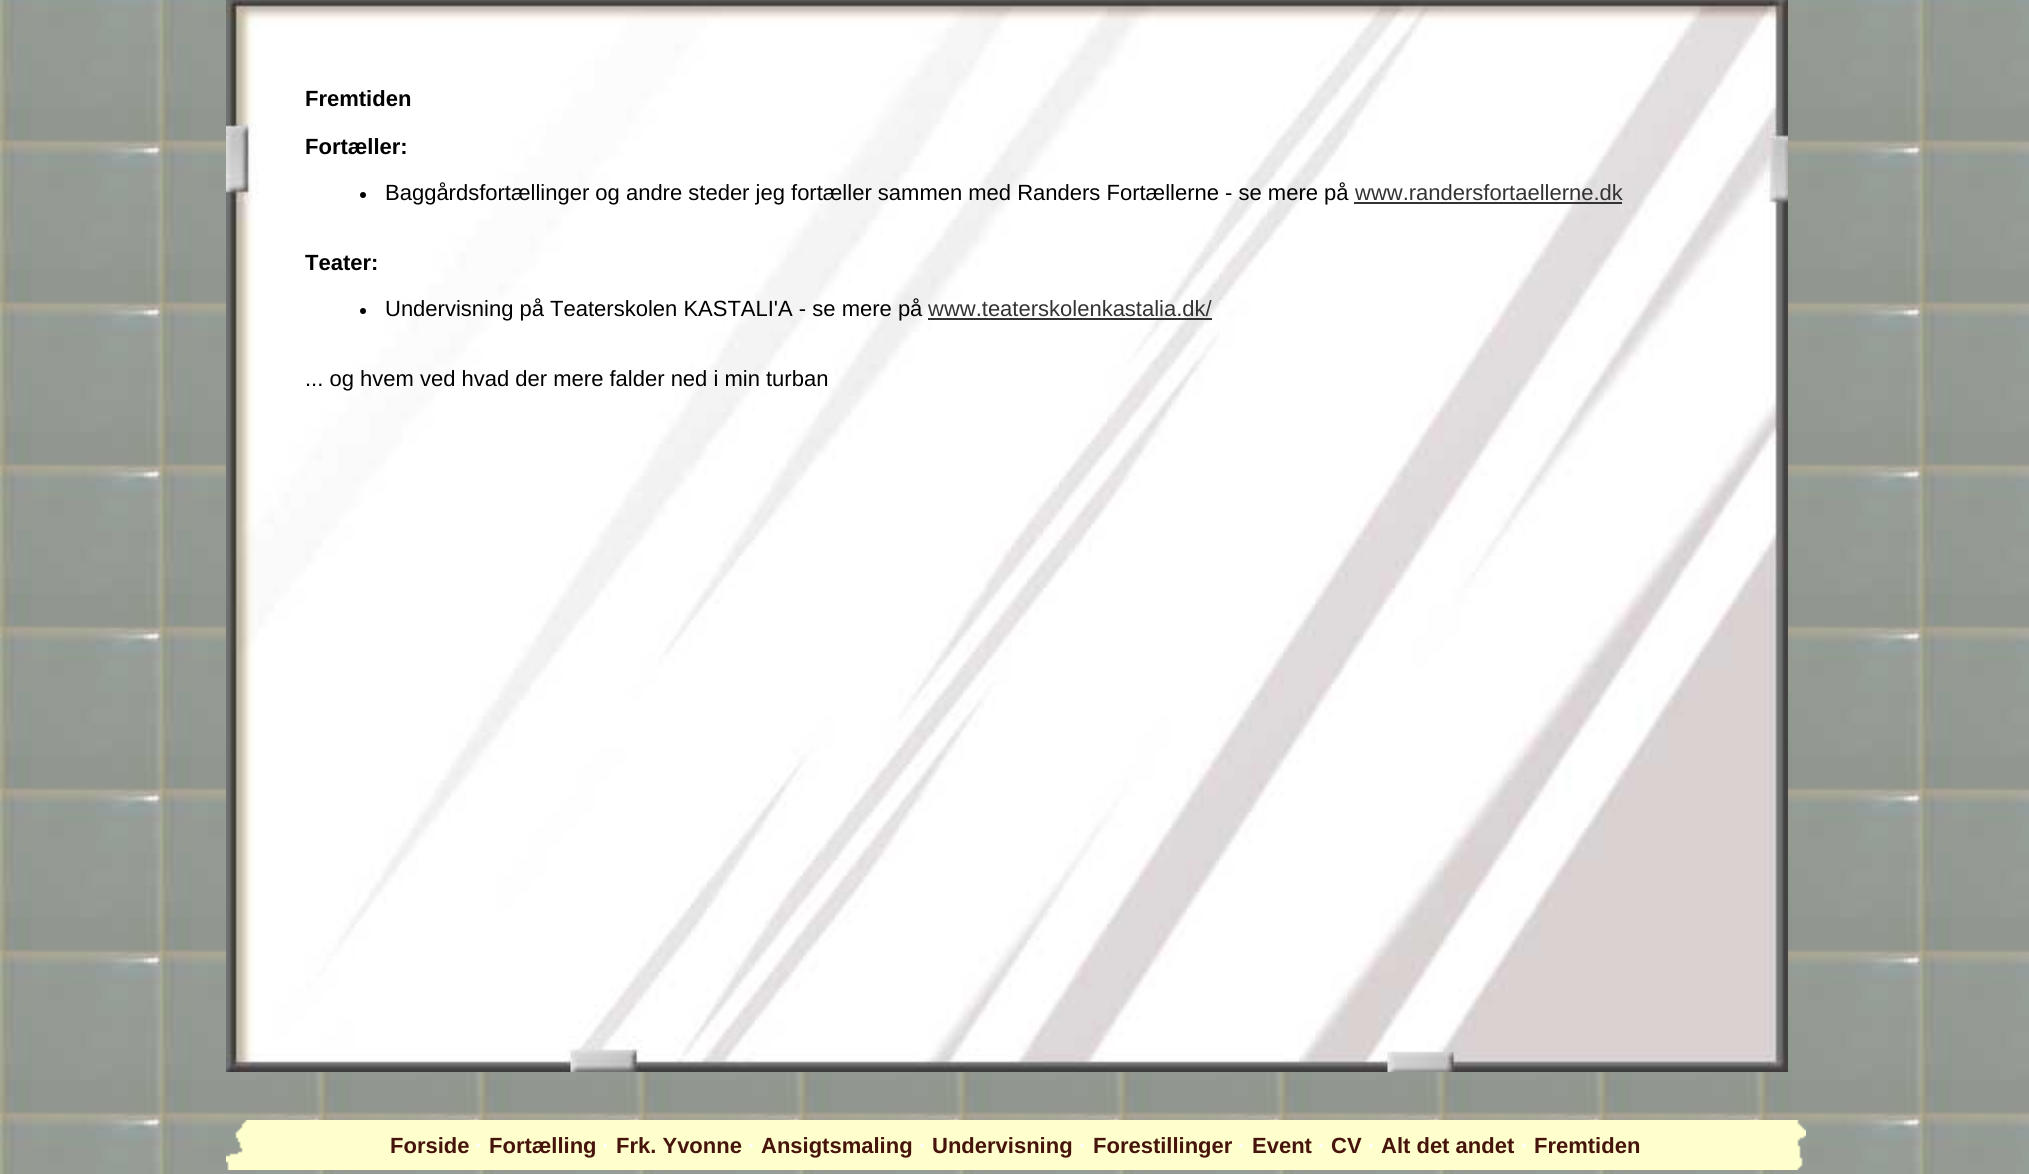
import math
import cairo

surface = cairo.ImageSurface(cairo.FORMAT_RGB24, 2029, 1174)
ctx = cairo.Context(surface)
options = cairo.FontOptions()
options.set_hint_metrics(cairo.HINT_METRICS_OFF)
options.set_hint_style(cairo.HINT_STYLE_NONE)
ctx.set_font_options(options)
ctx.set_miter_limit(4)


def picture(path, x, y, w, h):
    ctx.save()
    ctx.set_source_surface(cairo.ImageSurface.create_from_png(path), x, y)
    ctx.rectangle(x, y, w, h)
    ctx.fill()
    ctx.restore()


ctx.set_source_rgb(1, 1, 1)
ctx.paint()
picture("img1.png", 0, 0, 2029, 1174)
picture("img2.png", 226, 0, 1562, 1072)
ctx.select_font_face("Liberation Sans", cairo.FONT_SLANT_NORMAL, cairo.FONT_WEIGHT_BOLD)
ctx.set_font_size(22)
ctx.set_source_rgb(0, 0, 0)
ctx.move_to(305, 106)
ctx.show_text("Fremtiden")
ctx.move_to(305, 154)
ctx.show_text("Fortæller:")
ctx.new_path()
ctx.arc(363, 195, 3, 0, 2 * math.pi)
ctx.fill()
ctx.select_font_face("Liberation Sans")
ctx.move_to(385, 200)
ctx.show_text("Baggårdsfortællinger og andre steder jeg fortæller sammen med Randers Fortællerne - se mere på")
ctx.set_source_rgb(0.2, 0.2, 0.2)
ctx.move_to(1355, 200)
ctx.show_text("www.randersfortaellerne.dk")
ctx.rectangle(1354, 202, 268, 2)
ctx.fill()
ctx.select_font_face("Liberation Sans", cairo.FONT_SLANT_NORMAL, cairo.FONT_WEIGHT_BOLD)
ctx.set_source_rgb(0, 0, 0)
ctx.move_to(305, 270)
ctx.show_text("Teater:")
ctx.new_path()
ctx.arc(363, 311, 3, 0, 2 * math.pi)
ctx.fill()
ctx.select_font_face("Liberation Sans")
ctx.move_to(385, 316)
ctx.show_text("Undervisning på Teaterskolen KASTALI'A - se mere på")
ctx.set_source_rgb(0.2, 0.2, 0.2)
ctx.move_to(928, 316)
ctx.show_text("www.teaterskolenkastalia.dk/")
ctx.rectangle(928, 318, 284, 2)
ctx.fill()
ctx.set_source_rgb(0, 0, 0)
ctx.move_to(305, 386)
ctx.show_text("... og hvem ved hvad der mere falder ned i min turban")
picture("img3.png", 226, 1120, 1580, 50)
ctx.select_font_face("Liberation Sans", cairo.FONT_SLANT_NORMAL, cairo.FONT_WEIGHT_BOLD)
ctx.set_source_rgb(0.278, 0.082, 0.047)
ctx.move_to(390, 1153)
ctx.show_text("Forside")
ctx.set_source_rgb(1, 1, 1)
ctx.move_to(475, 1153)
ctx.show_text("·")
ctx.set_source_rgb(0.278, 0.082, 0.047)
ctx.move_to(489, 1153)
ctx.show_text("Fortælling")
ctx.set_source_rgb(1, 1, 1)
ctx.move_to(602, 1153)
ctx.show_text("·")
ctx.set_source_rgb(0.278, 0.082, 0.047)
ctx.move_to(616, 1153)
ctx.show_text("Frk. Yvonne")
ctx.set_source_rgb(1, 1, 1)
ctx.move_to(748, 1153)
ctx.show_text("·")
ctx.set_source_rgb(0.278, 0.082, 0.047)
ctx.move_to(761, 1153)
ctx.show_text("Ansigtsmaling")
ctx.set_source_rgb(1, 1, 1)
ctx.move_to(919, 1153)
ctx.show_text("·")
ctx.set_source_rgb(0.278, 0.082, 0.047)
ctx.move_to(932, 1153)
ctx.show_text("Undervisning")
ctx.set_source_rgb(1, 1, 1)
ctx.move_to(1079, 1153)
ctx.show_text("·")
ctx.set_source_rgb(0.278, 0.082, 0.047)
ctx.move_to(1093, 1153)
ctx.show_text("Forestillinger")
ctx.set_source_rgb(1, 1, 1)
ctx.move_to(1238, 1153)
ctx.show_text("·")
ctx.set_source_rgb(0.278, 0.082, 0.047)
ctx.move_to(1252, 1153)
ctx.show_text("Event")
ctx.set_source_rgb(1, 1, 1)
ctx.move_to(1318, 1153)
ctx.show_text("·")
ctx.set_source_rgb(0.278, 0.082, 0.047)
ctx.move_to(1331, 1153)
ctx.show_text("CV")
ctx.set_source_rgb(1, 1, 1)
ctx.move_to(1368, 1153)
ctx.show_text("·")
ctx.set_source_rgb(0.278, 0.082, 0.047)
ctx.move_to(1381, 1153)
ctx.show_text("Alt det andet")
ctx.set_source_rgb(1, 1, 1)
ctx.move_to(1521, 1153)
ctx.show_text("·")
ctx.set_source_rgb(0.278, 0.082, 0.047)
ctx.move_to(1534, 1153)
ctx.show_text("Fremtiden")
surface.write_to_png("page.png")
